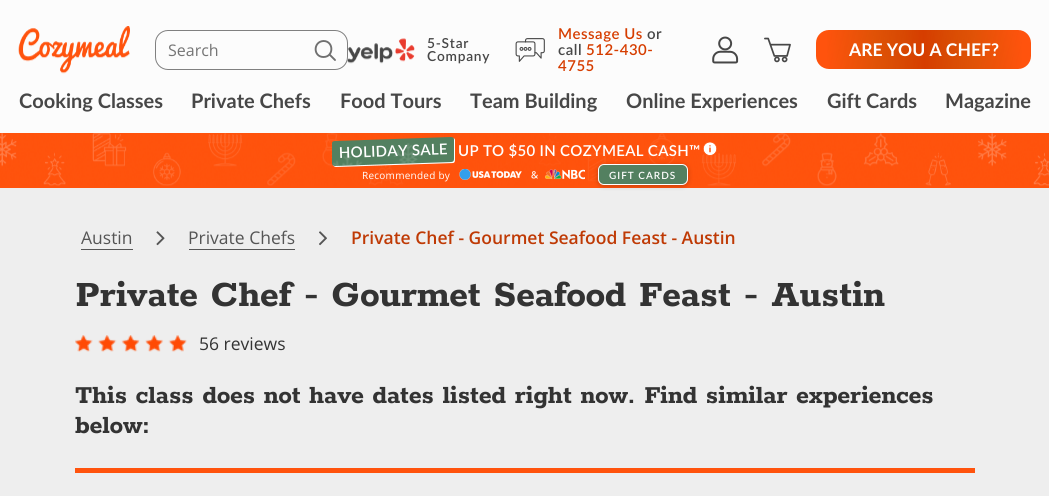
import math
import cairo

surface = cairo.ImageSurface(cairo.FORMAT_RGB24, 1049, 496)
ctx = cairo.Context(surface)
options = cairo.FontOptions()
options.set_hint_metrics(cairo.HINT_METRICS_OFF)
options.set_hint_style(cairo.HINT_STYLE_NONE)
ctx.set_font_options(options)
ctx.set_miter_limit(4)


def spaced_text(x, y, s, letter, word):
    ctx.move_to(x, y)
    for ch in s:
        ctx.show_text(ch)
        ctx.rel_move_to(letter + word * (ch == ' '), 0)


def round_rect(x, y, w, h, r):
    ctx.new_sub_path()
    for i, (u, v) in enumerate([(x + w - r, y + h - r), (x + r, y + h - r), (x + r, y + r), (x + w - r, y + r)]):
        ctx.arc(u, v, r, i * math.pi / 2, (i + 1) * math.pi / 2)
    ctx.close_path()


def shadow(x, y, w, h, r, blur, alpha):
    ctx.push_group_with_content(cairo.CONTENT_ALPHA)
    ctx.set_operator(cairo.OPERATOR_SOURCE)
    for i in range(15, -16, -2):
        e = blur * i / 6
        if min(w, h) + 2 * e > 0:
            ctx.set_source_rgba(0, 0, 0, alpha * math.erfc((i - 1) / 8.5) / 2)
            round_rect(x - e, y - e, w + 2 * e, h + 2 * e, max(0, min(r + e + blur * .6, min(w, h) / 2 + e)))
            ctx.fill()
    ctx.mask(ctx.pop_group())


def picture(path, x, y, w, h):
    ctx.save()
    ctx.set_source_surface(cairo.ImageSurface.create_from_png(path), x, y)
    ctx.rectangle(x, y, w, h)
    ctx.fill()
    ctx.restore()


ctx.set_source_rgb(0.933, 0.933, 0.933)
ctx.paint()
ctx.set_source_rgb(0.988, 0.988, 0.988)
ctx.rectangle(0, 0, 1049, 133)
ctx.fill()
picture("img1.png", 18, 26, 112, 48)
picture("img2.png", 347, 38, 68, 26)
round_rect(155.5, 30.5, 192, 39, 12.5)
ctx.set_source_rgb(0.502, 0.502, 0.502)
ctx.set_line_width(1)
ctx.stroke()
ctx.select_font_face("Open Sans")
ctx.set_font_size(16)
ctx.set_source_rgb(0.459, 0.459, 0.459)
ctx.move_to(168, 56)
ctx.show_text("Search")
ctx.new_path()
ctx.move_to(323.5, 57)
ctx.curve_to(334, 57, 334, 41, 323.5, 41)
ctx.curve_to(313, 41.5, 313, 57, 323.5, 57)
ctx.close_path()
ctx.move_to(329.5, 54.5)
ctx.line_to(335, 60)
ctx.set_source_rgb(0.439, 0.439, 0.439)
ctx.set_line_width(1.9)
ctx.set_line_cap(cairo.LINE_CAP_ROUND)
ctx.set_line_join(cairo.LINE_JOIN_ROUND)
ctx.stroke()
ctx.select_font_face("Lato SemiBold")
ctx.set_font_size(13.75)
ctx.set_source_rgb(0.278, 0.278, 0.278)
spaced_text(427, 48, "5-Star", 0.75, 0)
spaced_text(427, 61, "Company", 0.75, 0)
picture("img3.png", 515, 38, 30, 24)
ctx.set_font_size(15)
ctx.set_source_rgb(0.839, 0.239, 0)
spaced_text(558, 39, "Message Us", 0.5, 0)
ctx.set_source_rgb(0.278, 0.278, 0.278)
spaced_text(647, 39, "or", 0.5, 0)
spaced_text(558, 55, "call", 0.5, 0)
ctx.set_source_rgb(0.839, 0.239, 0)
spaced_text(586, 55, "512-430-", 0.5, 0)
spaced_text(558, 71, "4755", 0.5, 0)
picture("img4.png", 712, 36, 27, 28)
picture("img5.png", 764, 37, 27, 26)
ctx.set_source_rgb(1, 0.325, 0.051)
round_rect(816, 30, 215, 39, 13)
ctx.fill()
gradient = cairo.LinearGradient(816, 55, 1032, 44)
gradient.add_color_stop_rgba(0.04, 0.761, 0.318, 0, 0)
gradient.add_color_stop_rgba(0.27, 0.761, 0.318, 0, 0.5)
gradient.add_color_stop_rgba(0.5, 0.839, 0.239, 0, 1)
gradient.add_color_stop_rgba(0.73, 0.761, 0.318, 0, 0.5)
gradient.add_color_stop_rgba(0.96, 0.761, 0.318, 0, 0)
ctx.set_source(gradient)
ctx.rectangle(827, 30, 195, 39)
ctx.fill()
ctx.select_font_face("Lato", cairo.FONT_SLANT_NORMAL, cairo.FONT_WEIGHT_BOLD)
ctx.set_font_size(17.5)
ctx.set_source_rgb(1, 1, 1)
ctx.move_to(849, 56)
ctx.show_text("ARE YOU A CHEF?")
ctx.set_font_size(20)
ctx.set_source_rgb(0.278, 0.278, 0.278)
ctx.move_to(19, 108)
ctx.show_text("Cooking Classes")
ctx.move_to(191, 108)
ctx.show_text("Private Chefs")
ctx.move_to(340, 108)
ctx.show_text("Food Tours")
ctx.move_to(470, 108)
ctx.show_text("Team Building")
ctx.move_to(626, 108)
ctx.show_text("Online Experiences")
ctx.move_to(827, 108)
ctx.show_text("Gift Cards")
ctx.move_to(945, 108)
ctx.show_text("Magazine")
ctx.set_source_rgb(1, 0.325, 0.051)
ctx.rectangle(0, 133, 1049, 55)
ctx.fill()
picture("img6.png", 0, 133, 1049, 53)
ctx.set_source_rgb(1, 1, 1)
ctx.new_path()
ctx.move_to(336, 142)
ctx.line_to(453, 138)
ctx.curve_to(454, 138, 455, 139, 455, 140)
ctx.line_to(455, 160)
ctx.curve_to(455, 162, 454, 163, 453, 163)
ctx.line_to(336, 167)
ctx.curve_to(335, 167, 333, 166, 333, 165)
ctx.line_to(333, 145)
ctx.curve_to(333, 143, 335, 142, 336, 142)
ctx.close_path()
ctx.fill()
ctx.set_source_rgb(0.325, 0.502, 0.376)
ctx.new_path()
ctx.move_to(335, 141)
ctx.line_to(451, 137)
ctx.curve_to(453, 137, 454, 138, 454, 139)
ctx.line_to(454, 159)
ctx.curve_to(454, 161, 453, 162, 451, 162)
ctx.line_to(335, 166)
ctx.curve_to(333, 166, 332, 165, 332, 163)
ctx.line_to(332, 143)
ctx.curve_to(332, 142, 333, 141, 335, 141)
ctx.close_path()
ctx.fill()
picture("img7.png", 333, 143, 90, 23)
ctx.select_font_face("Lato SemiBold")
ctx.set_font_size(15)
ctx.set_source_rgb(1, 1, 1)
ctx.save()
ctx.translate(339, 158)
ctx.rotate(-2 * math.pi / 180)
spaced_text(0, 0, "HOLIDAY SALE", 0.3, 0)
ctx.restore()
spaced_text(458, 156, "UP TO $50 IN COZYMEAL CASH™", 0.3, 0)
picture("img8.png", 703, 142, 14, 14)
ctx.select_font_face("Open Sans")
ctx.set_font_size(10)
spaced_text(362, 179, "Recommended by", 0.25, 0)
picture("img9.png", 459, 169, 63, 11)
picture("img10.png", 531, 171, 7, 8)
picture("img11.png", 545, 169, 40, 11)
ctx.set_source_rgb(0, 0, 0)
shadow(598, 165, 90, 21, 6, 2.5, 0.25)
ctx.set_source_rgb(0.325, 0.502, 0.376)
round_rect(598.5, 164.5, 89, 20, 5.5)
ctx.fill_preserve()
ctx.set_source_rgb(1, 1, 1)
ctx.set_line_width(1)
ctx.set_line_cap(cairo.LINE_CAP_BUTT)
ctx.set_line_join(cairo.LINE_JOIN_MITER)
ctx.stroke()
ctx.select_font_face("Lato SemiBold")
spaced_text(609, 179, "GIFT CARDS", 1, 0)
ctx.select_font_face("Open Sans")
ctx.set_font_size(17.5)
ctx.set_source_rgb(0.333, 0.333, 0.333)
ctx.move_to(81, 244)
ctx.show_text("Austin")
ctx.rectangle(81, 249, 52, 1)
ctx.fill()
picture("img12.png", 156, 231, 9, 15)
ctx.move_to(188, 244)
ctx.show_text("Private Chefs")
ctx.rectangle(189, 249, 106, 1)
ctx.fill()
picture("img13.png", 319, 231, 8, 15)
ctx.select_font_face("Open Sans SemiBold")
ctx.set_source_rgb(0.749, 0.227, 0.02)
ctx.move_to(351, 244)
ctx.show_text("Private Chef - Gourmet Seafood Feast - Austin")
ctx.select_font_face("Rokkitt", cairo.FONT_SLANT_NORMAL, cairo.FONT_WEIGHT_BOLD)
ctx.set_font_size(40)
ctx.set_source_rgb(0.2, 0.2, 0.2)
ctx.move_to(75, 306)
ctx.show_text("Private Chef - Gourmet Seafood Feast - Austin")
picture("img14.png", 75, 335, 112, 17)
ctx.select_font_face("Open Sans")
ctx.set_font_size(17.5)
ctx.move_to(199, 350)
ctx.show_text("56 reviews")
ctx.set_source_rgb(1, 0.325, 0.051)
ctx.rectangle(75, 468, 900, 5)
ctx.fill()
ctx.select_font_face("Rokkitt", cairo.FONT_SLANT_NORMAL, cairo.FONT_WEIGHT_BOLD)
ctx.set_font_size(27.5)
ctx.set_source_rgb(0.2, 0.2, 0.2)
ctx.move_to(75, 403)
ctx.show_text("This class does not have dates listed right now. Find similar experiences")
ctx.move_to(75, 433)
ctx.show_text("below:")
surface.write_to_png("page.png")
